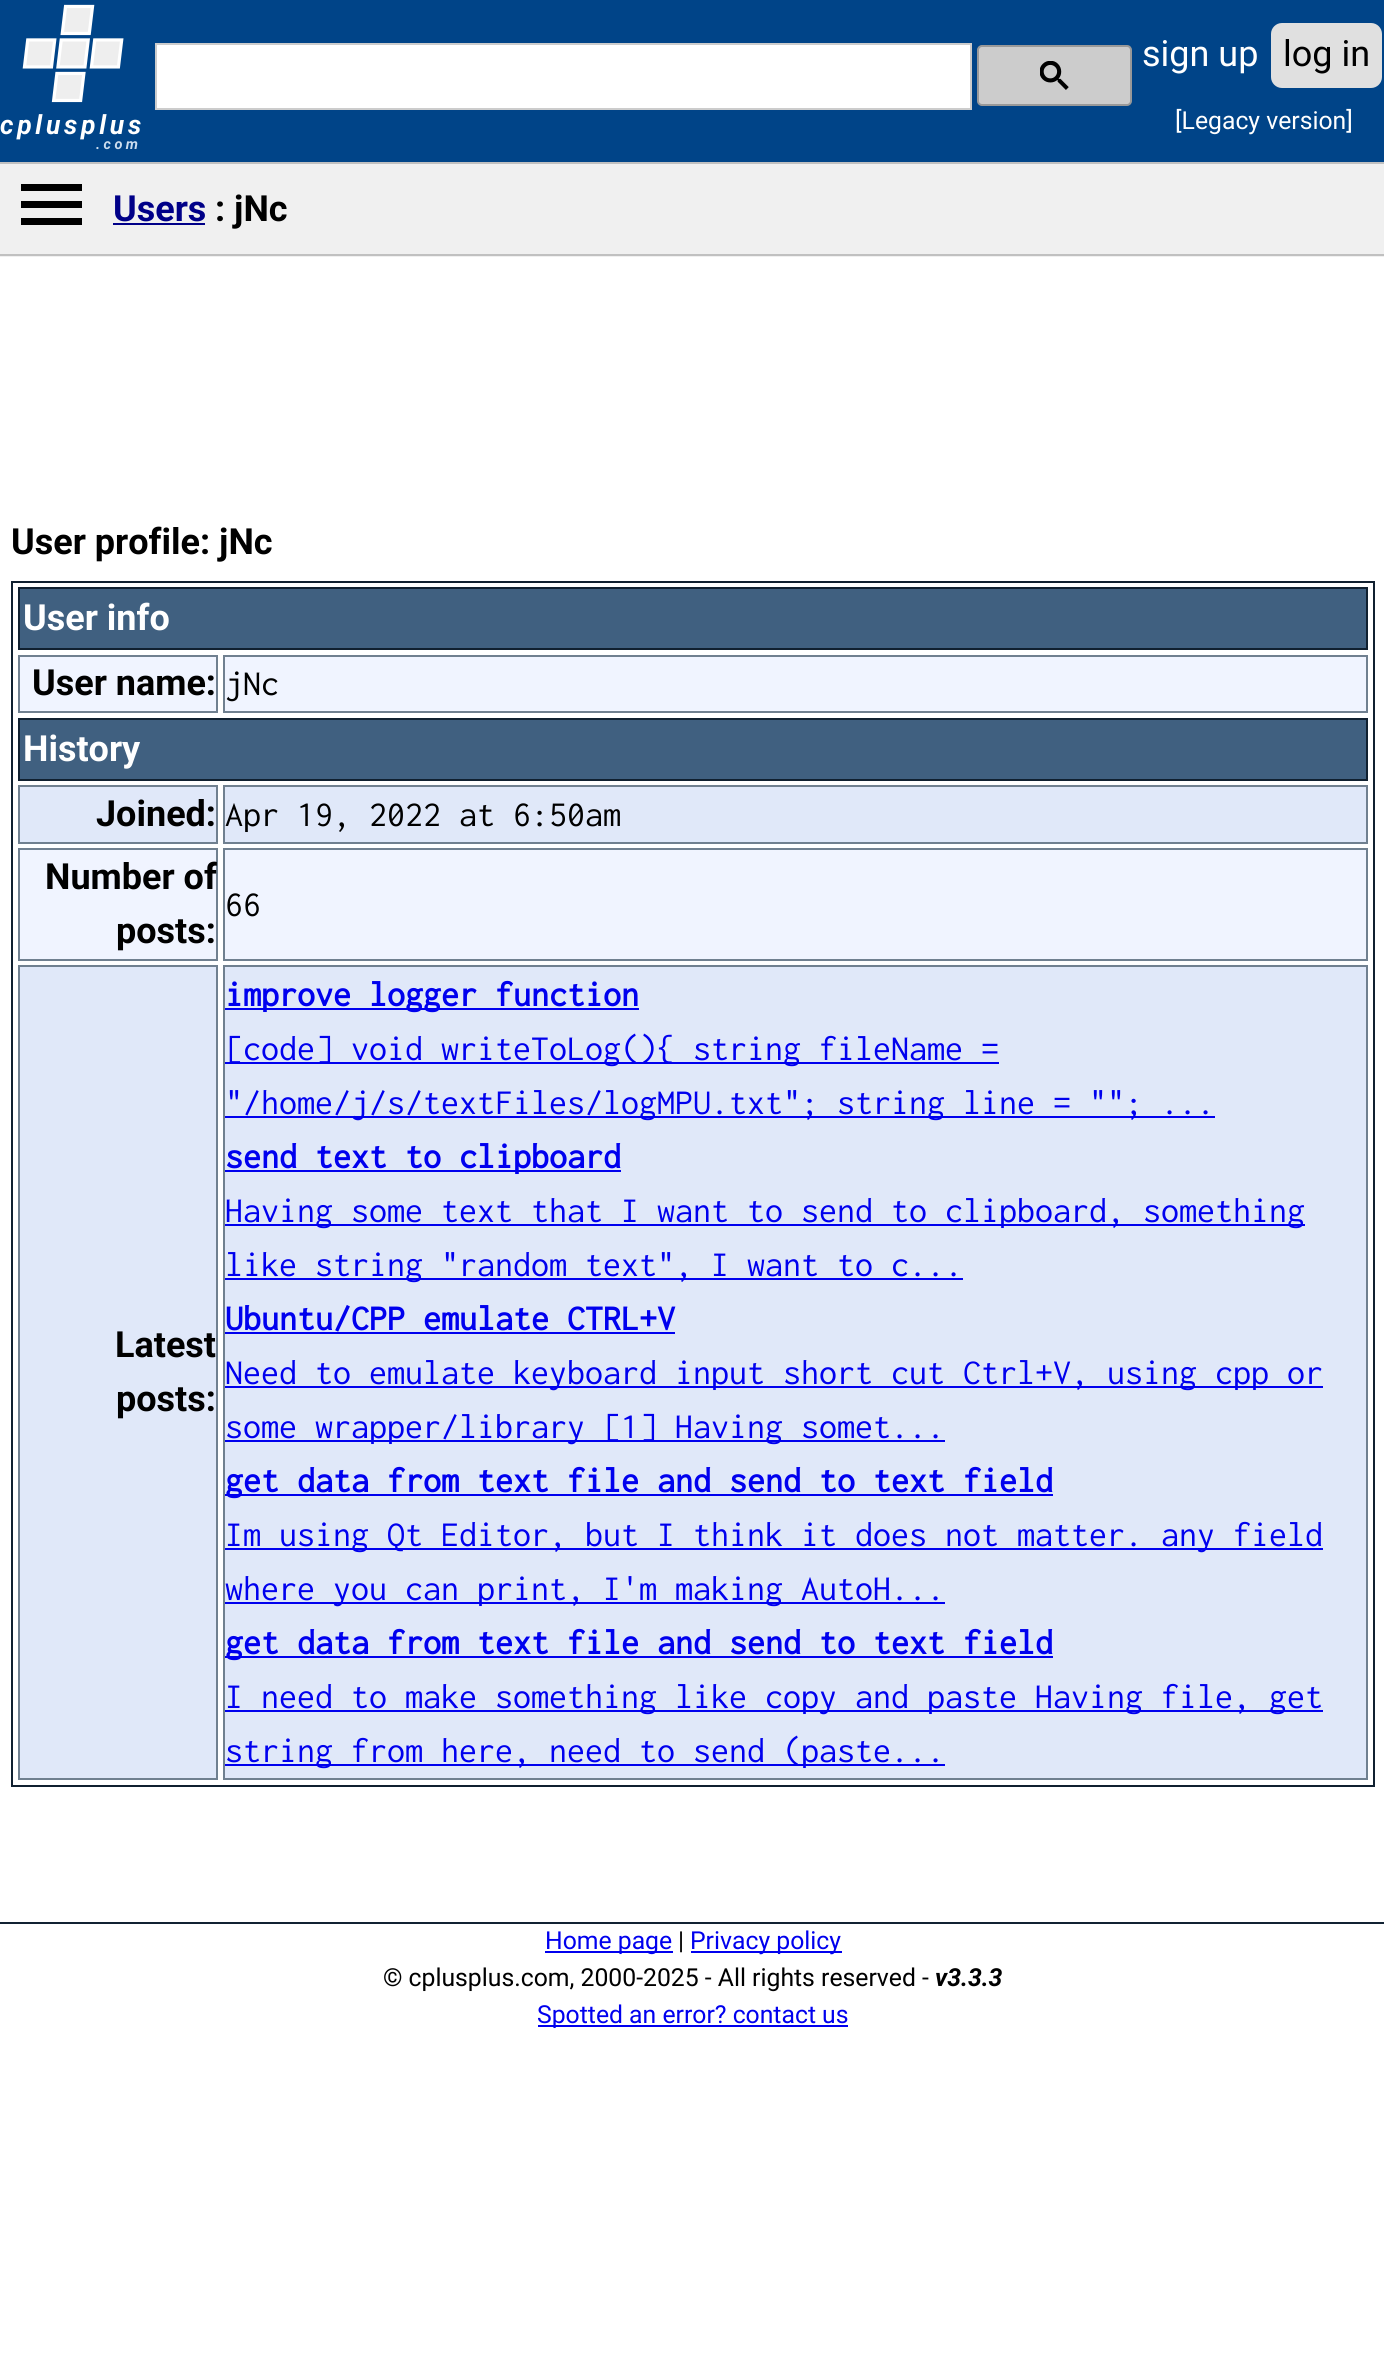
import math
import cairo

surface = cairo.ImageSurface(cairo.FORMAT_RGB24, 1384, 2374)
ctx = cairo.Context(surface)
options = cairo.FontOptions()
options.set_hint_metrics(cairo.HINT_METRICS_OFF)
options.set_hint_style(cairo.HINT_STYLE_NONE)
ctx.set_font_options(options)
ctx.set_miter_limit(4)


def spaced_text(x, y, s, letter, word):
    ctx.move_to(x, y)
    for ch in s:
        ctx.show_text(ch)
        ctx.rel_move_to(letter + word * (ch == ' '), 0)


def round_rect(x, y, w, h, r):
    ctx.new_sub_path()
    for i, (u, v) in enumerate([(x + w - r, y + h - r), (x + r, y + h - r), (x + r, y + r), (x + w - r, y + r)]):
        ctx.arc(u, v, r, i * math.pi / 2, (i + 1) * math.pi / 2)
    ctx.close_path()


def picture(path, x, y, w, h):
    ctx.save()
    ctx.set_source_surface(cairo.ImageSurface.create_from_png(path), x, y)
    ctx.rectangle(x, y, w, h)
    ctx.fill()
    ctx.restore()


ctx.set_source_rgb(1, 1, 1)
ctx.paint()
ctx.set_source_rgb(0, 0.267, 0.533)
ctx.rectangle(0, 0, 1384, 162)
ctx.fill()
ctx.set_source_rgb(1, 1, 1)
ctx.rectangle(156, 44, 815, 65)
ctx.fill_preserve()
ctx.set_source_rgb(0.8, 0.8, 0.8)
ctx.stroke()
round_rect(978, 46, 153, 59, 4)
ctx.fill_preserve()
ctx.set_source_rgb(0.6, 0.6, 0.6)
ctx.stroke()
picture("img1.png", 1040, 61, 29, 29)
ctx.select_font_face("Roboto")
ctx.set_font_size(36)
ctx.set_source_rgb(1, 1, 1)
ctx.move_to(1142, 66)
ctx.show_text("sign up")
ctx.set_source_rgb(0.878, 0.878, 0.878)
round_rect(1271, 23, 111, 65, 11)
ctx.fill()
ctx.set_source_rgb(0, 0, 0)
ctx.move_to(1283, 66)
ctx.show_text("log in")
ctx.set_font_size(24.75)
ctx.set_source_rgb(1, 1, 1)
ctx.move_to(1175, 129)
ctx.show_text("[Legacy version]")
picture("img2.png", 22, 4, 102, 99)
ctx.select_font_face("Roboto", cairo.FONT_SLANT_ITALIC, cairo.FONT_WEIGHT_BOLD)
ctx.set_font_size(26.5)
spaced_text(0, 134, "cplusplus", 3.75, 0)
ctx.set_font_size(14.5)
ctx.set_source_rgb(0.8, 0.867, 0.933)
spaced_text(96, 149, ".com", 3.5, 0)
ctx.set_source_rgb(0.941, 0.941, 0.941)
ctx.rectangle(0, 164, 1384, 93)
ctx.fill()
ctx.set_source_rgb(0.753, 0.753, 0.753)
ctx.rectangle(0, 162, 1384, 2)
ctx.fill()
ctx.rectangle(0, 254, 1384, 2)
ctx.fill()
ctx.set_source_rgb(0, 0, 0)
ctx.new_path()
ctx.move_to(21, 225)
ctx.line_to(82, 225)
ctx.line_to(82, 218)
ctx.line_to(21, 218)
ctx.close_path()
ctx.move_to(21, 208)
ctx.line_to(82, 208)
ctx.line_to(82, 201)
ctx.line_to(21, 201)
ctx.close_path()
ctx.move_to(21, 184)
ctx.line_to(21, 191)
ctx.line_to(82, 191)
ctx.line_to(82, 184)
ctx.close_path()
ctx.fill()
ctx.select_font_face("Roboto", cairo.FONT_SLANT_NORMAL, cairo.FONT_WEIGHT_BOLD)
ctx.set_font_size(36)
ctx.set_source_rgb(0, 0, 0.533)
ctx.move_to(113, 221)
ctx.show_text("Users")
ctx.rectangle(113, 223, 92, 2)
ctx.fill()
ctx.set_source_rgb(0, 0, 0)
ctx.move_to(215, 221)
ctx.show_text(": jNc")
ctx.move_to(11, 554)
ctx.show_text("User profile: jNc")
ctx.rectangle(12, 582, 1362, 1204)
ctx.set_source_rgb(0.063, 0.125, 0.188)
ctx.stroke()
ctx.set_source_rgb(0.251, 0.376, 0.502)
ctx.rectangle(19, 588, 1348, 61)
ctx.fill_preserve()
ctx.set_source_rgb(0.063, 0.125, 0.188)
ctx.stroke()
ctx.set_source_rgb(1, 1, 1)
ctx.move_to(23, 630)
ctx.show_text("User info")
ctx.set_source_rgb(0.941, 0.957, 1)
ctx.rectangle(19, 656, 198, 56)
ctx.fill_preserve()
ctx.set_source_rgb(0.439, 0.502, 0.565)
ctx.stroke()
ctx.set_source_rgb(0, 0, 0)
ctx.move_to(32, 695)
ctx.show_text("User name:")
ctx.set_source_rgb(0.941, 0.957, 1)
ctx.rectangle(224, 656, 1143, 56)
ctx.fill_preserve()
ctx.set_source_rgb(0.439, 0.502, 0.565)
ctx.stroke()
ctx.select_font_face("Inconsolata")
ctx.set_source_rgb(0, 0, 0)
ctx.move_to(225, 695)
ctx.show_text("jNc")
ctx.set_source_rgb(0.251, 0.376, 0.502)
ctx.rectangle(19, 719, 1348, 61)
ctx.fill_preserve()
ctx.set_source_rgb(0.063, 0.125, 0.188)
ctx.stroke()
ctx.select_font_face("Roboto", cairo.FONT_SLANT_NORMAL, cairo.FONT_WEIGHT_BOLD)
ctx.set_source_rgb(1, 1, 1)
ctx.move_to(23, 761)
ctx.show_text("History")
ctx.set_source_rgb(0.878, 0.91, 0.973)
ctx.rectangle(19, 786, 198, 57)
ctx.fill_preserve()
ctx.set_source_rgb(0.439, 0.502, 0.565)
ctx.stroke()
ctx.set_source_rgb(0, 0, 0)
ctx.move_to(96, 826)
ctx.show_text("Joined:")
ctx.set_source_rgb(0.878, 0.91, 0.973)
ctx.rectangle(224, 786, 1143, 57)
ctx.fill_preserve()
ctx.set_source_rgb(0.439, 0.502, 0.565)
ctx.stroke()
ctx.select_font_face("Inconsolata")
ctx.set_source_rgb(0, 0, 0)
ctx.move_to(225, 826)
ctx.show_text("Apr 19, 2022 at 6:50am")
ctx.set_source_rgb(0.941, 0.957, 1)
ctx.rectangle(19, 849, 198, 111)
ctx.fill_preserve()
ctx.set_source_rgb(0.439, 0.502, 0.565)
ctx.stroke()
ctx.select_font_face("Roboto", cairo.FONT_SLANT_NORMAL, cairo.FONT_WEIGHT_BOLD)
ctx.set_source_rgb(0, 0, 0)
ctx.move_to(45, 889)
ctx.show_text("Number of")
ctx.move_to(116, 943)
ctx.show_text("posts:")
ctx.set_source_rgb(0.941, 0.957, 1)
ctx.rectangle(224, 849, 1143, 111)
ctx.fill_preserve()
ctx.set_source_rgb(0.439, 0.502, 0.565)
ctx.stroke()
ctx.select_font_face("Inconsolata")
ctx.set_source_rgb(0, 0, 0)
ctx.move_to(225, 916)
ctx.show_text("66")
ctx.set_source_rgb(0.878, 0.91, 0.973)
ctx.rectangle(19, 966, 198, 813)
ctx.fill_preserve()
ctx.set_source_rgb(0.439, 0.502, 0.565)
ctx.stroke()
ctx.select_font_face("Roboto", cairo.FONT_SLANT_NORMAL, cairo.FONT_WEIGHT_BOLD)
ctx.set_source_rgb(0, 0, 0)
ctx.move_to(115, 1357)
ctx.show_text("Latest")
ctx.move_to(116, 1411)
ctx.show_text("posts:")
ctx.set_source_rgb(0.878, 0.91, 0.973)
ctx.rectangle(224, 966, 1143, 813)
ctx.fill_preserve()
ctx.set_source_rgb(0.439, 0.502, 0.565)
ctx.stroke()
ctx.set_source_rgb(0, 0, 0.933)
ctx.rectangle(225, 1008, 414, 2)
ctx.fill()
ctx.select_font_face("Inconsolata", cairo.FONT_SLANT_NORMAL, cairo.FONT_WEIGHT_BOLD)
ctx.move_to(225, 1006)
ctx.show_text("improve logger function")
ctx.rectangle(225, 1062, 774, 2)
ctx.fill()
ctx.select_font_face("Inconsolata")
ctx.move_to(225, 1060)
ctx.show_text("[code] void writeToLog(){ string fileName =")
ctx.rectangle(225, 1116, 990, 2)
ctx.fill()
ctx.move_to(225, 1114)
ctx.show_text("\"/home/j/s/textFiles/logMPU.txt\"; string line = \"\"; ...")
ctx.rectangle(225, 1170, 396, 2)
ctx.fill()
ctx.select_font_face("Inconsolata", cairo.FONT_SLANT_NORMAL, cairo.FONT_WEIGHT_BOLD)
ctx.move_to(225, 1168)
ctx.show_text("send text to clipboard")
ctx.rectangle(225, 1224, 1080, 2)
ctx.fill()
ctx.select_font_face("Inconsolata")
ctx.move_to(225, 1222)
ctx.show_text("Having some text that I want to send to clipboard, something")
ctx.rectangle(225, 1278, 738, 2)
ctx.fill()
ctx.move_to(225, 1276)
ctx.show_text("like string \"random text\", I want to c...")
ctx.select_font_face("Inconsolata", cairo.FONT_SLANT_NORMAL, cairo.FONT_WEIGHT_BOLD)
ctx.move_to(225, 1330)
ctx.show_text("Ubuntu/CPP emulate CTRL+V")
ctx.rectangle(225, 1332, 450, 2)
ctx.fill()
ctx.rectangle(225, 1386, 1098, 2)
ctx.fill()
ctx.select_font_face("Inconsolata")
ctx.move_to(225, 1384)
ctx.show_text("Need to emulate keyboard input short cut Ctrl+V, using cpp or")
ctx.rectangle(225, 1440, 720, 2)
ctx.fill()
ctx.move_to(225, 1438)
ctx.show_text("some wrapper/library [1] Having somet...")
ctx.rectangle(225, 1494, 828, 2)
ctx.fill()
ctx.select_font_face("Inconsolata", cairo.FONT_SLANT_NORMAL, cairo.FONT_WEIGHT_BOLD)
ctx.move_to(225, 1492)
ctx.show_text("get data from text file and send to text field")
ctx.rectangle(225, 1548, 1098, 2)
ctx.fill()
ctx.select_font_face("Inconsolata")
ctx.move_to(225, 1546)
ctx.show_text("Im using Qt Editor, but I think it does not matter. any field")
ctx.rectangle(225, 1602, 720, 2)
ctx.fill()
ctx.move_to(225, 1600)
ctx.show_text("where you can print, I'm making AutoH...")
ctx.rectangle(225, 1656, 828, 2)
ctx.fill()
ctx.select_font_face("Inconsolata", cairo.FONT_SLANT_NORMAL, cairo.FONT_WEIGHT_BOLD)
ctx.move_to(225, 1654)
ctx.show_text("get data from text file and send to text field")
ctx.rectangle(225, 1710, 1098, 2)
ctx.fill()
ctx.select_font_face("Inconsolata")
ctx.move_to(225, 1708)
ctx.show_text("I need to make something like copy and paste Having file, get")
ctx.rectangle(225, 1764, 720, 2)
ctx.fill()
ctx.move_to(225, 1762)
ctx.show_text("string from here, need to send (paste...")
ctx.set_source_rgb(0.067, 0.133, 0.2)
ctx.rectangle(0, 1922, 1384, 2)
ctx.fill()
ctx.set_source_rgb(0, 0, 0.933)
ctx.rectangle(545, 1951, 128, 2)
ctx.fill()
ctx.select_font_face("Roboto")
ctx.set_font_size(24.75)
ctx.move_to(545, 1949)
ctx.show_text("Home page")
ctx.set_source_rgb(0, 0, 0)
ctx.move_to(678, 1949)
ctx.show_text("|")
ctx.set_source_rgb(0, 0, 0.933)
ctx.rectangle(691, 1951, 151, 2)
ctx.fill()
ctx.move_to(690, 1949)
ctx.show_text("Privacy policy")
ctx.set_source_rgb(0, 0, 0)
ctx.move_to(383, 1986)
ctx.show_text("© cplusplus.com, 2000-2025 - All rights reserved -")
ctx.select_font_face("Roboto", cairo.FONT_SLANT_ITALIC, cairo.FONT_WEIGHT_BOLD)
ctx.move_to(935, 1986)
ctx.show_text("v3.3.3")
ctx.set_source_rgb(0, 0, 0.933)
ctx.rectangle(538, 2025, 310, 2)
ctx.fill()
ctx.select_font_face("Roboto")
ctx.move_to(537, 2023)
ctx.show_text("Spotted an error? contact us")
surface.write_to_png("page.png")
